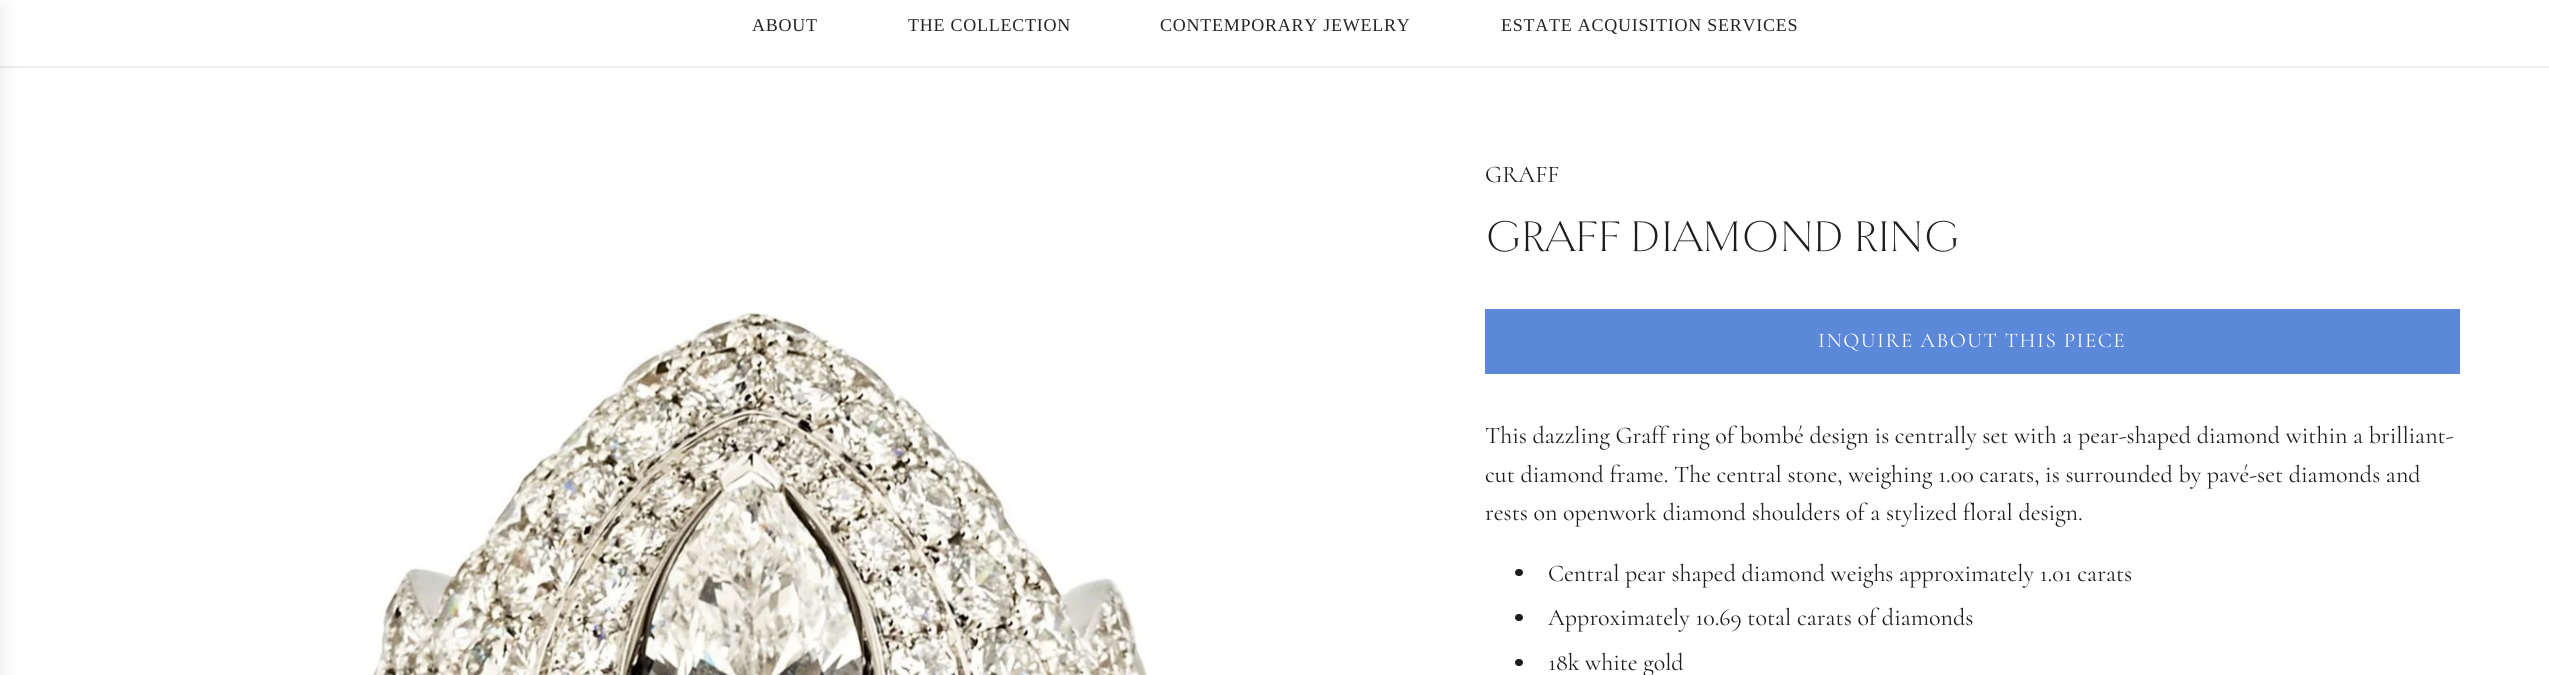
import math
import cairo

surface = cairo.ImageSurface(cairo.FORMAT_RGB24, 2549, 675)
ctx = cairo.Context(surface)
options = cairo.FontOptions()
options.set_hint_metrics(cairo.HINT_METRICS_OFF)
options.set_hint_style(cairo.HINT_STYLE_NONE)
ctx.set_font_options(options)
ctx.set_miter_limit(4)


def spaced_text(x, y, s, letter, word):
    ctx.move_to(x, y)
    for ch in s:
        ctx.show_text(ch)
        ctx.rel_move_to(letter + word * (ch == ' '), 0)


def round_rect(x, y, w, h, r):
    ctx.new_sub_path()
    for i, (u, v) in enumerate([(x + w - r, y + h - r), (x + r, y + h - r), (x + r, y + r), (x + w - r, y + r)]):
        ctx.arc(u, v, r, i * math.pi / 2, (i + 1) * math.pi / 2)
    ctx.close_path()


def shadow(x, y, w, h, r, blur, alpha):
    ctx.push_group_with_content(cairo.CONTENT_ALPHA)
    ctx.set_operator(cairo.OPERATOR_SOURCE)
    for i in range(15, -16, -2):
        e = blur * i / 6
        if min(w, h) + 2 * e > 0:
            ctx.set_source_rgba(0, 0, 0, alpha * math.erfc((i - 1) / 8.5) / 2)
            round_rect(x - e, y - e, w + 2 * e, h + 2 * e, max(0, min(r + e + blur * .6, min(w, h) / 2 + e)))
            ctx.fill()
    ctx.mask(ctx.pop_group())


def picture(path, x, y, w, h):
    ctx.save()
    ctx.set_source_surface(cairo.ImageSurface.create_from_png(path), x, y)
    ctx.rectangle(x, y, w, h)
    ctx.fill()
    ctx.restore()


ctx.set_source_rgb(1, 1, 1)
ctx.paint()
ctx.set_source_rgb(0.933, 0.933, 0.933)
ctx.rectangle(0, 66, 2549, 2)
ctx.fill()
ctx.set_source_rgb(0, 0, 0)
shadow(-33, 8, 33, 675, 0, 11, 0.1)
ctx.select_font_face("Liberation Serif")
ctx.set_font_size(18)
ctx.set_source_rgb(0.141, 0.141, 0.141)
spaced_text(752, 31, "ABOUT", 0.75, 0)
spaced_text(908, 31, "THE COLLECTION", 0.75, 0)
spaced_text(1160, 31, "CONTEMPORARY JEWELRY", 0.75, 0)
spaced_text(1501, 31, "ESTATE ACQUISITION SERVICES", 0.75, 0)
picture("img1.png", 371, 312, 777, 363)
ctx.select_font_face("Cormorant")
ctx.set_font_size(24)
ctx.set_source_rgb(0.11, 0.118, 0.114)
ctx.move_to(1485, 182)
ctx.show_text("GRAFF")
ctx.select_font_face("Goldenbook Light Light")
ctx.set_font_size(45)
ctx.move_to(1485, 251)
ctx.show_text("GRAFF DIAMOND RING")
ctx.set_source_rgb(0.361, 0.533, 0.855)
ctx.rectangle(1485, 309, 975, 65)
ctx.fill()
ctx.select_font_face("Cormorant")
ctx.set_font_size(21)
ctx.set_source_rgb(1, 1, 1)
spaced_text(1818, 347, "INQUIRE ABOUT THIS PIECE", 1.5, 0)
ctx.set_font_size(24)
ctx.set_source_rgb(0.11, 0.118, 0.114)
ctx.move_to(1485, 443)
ctx.show_text("This dazzling Graff ring of bombé design is centrally set with a pear-shaped diamond within a brilliant-")
ctx.move_to(1485, 482)
ctx.show_text("cut diamond frame. The central stone, weighing 1.00 carats, is surrounded by pavé-set diamonds and")
ctx.move_to(1485, 520)
ctx.show_text("rests on openwork diamond shoulders of a stylized floral design.")
round_rect(1515, 569, 8, 7, 3.5)
ctx.fill()
ctx.move_to(1548, 581)
ctx.show_text("Central pear shaped diamond weighs approximately 1.01 carats")
round_rect(1515, 614, 8, 7, 3.5)
ctx.fill()
ctx.move_to(1548, 625)
ctx.show_text("Approximately 10.69 total carats of diamonds")
round_rect(1515, 659, 8, 7, 3.5)
ctx.fill()
ctx.move_to(1548, 670)
ctx.show_text("18k white gold")
surface.write_to_png("page.png")
